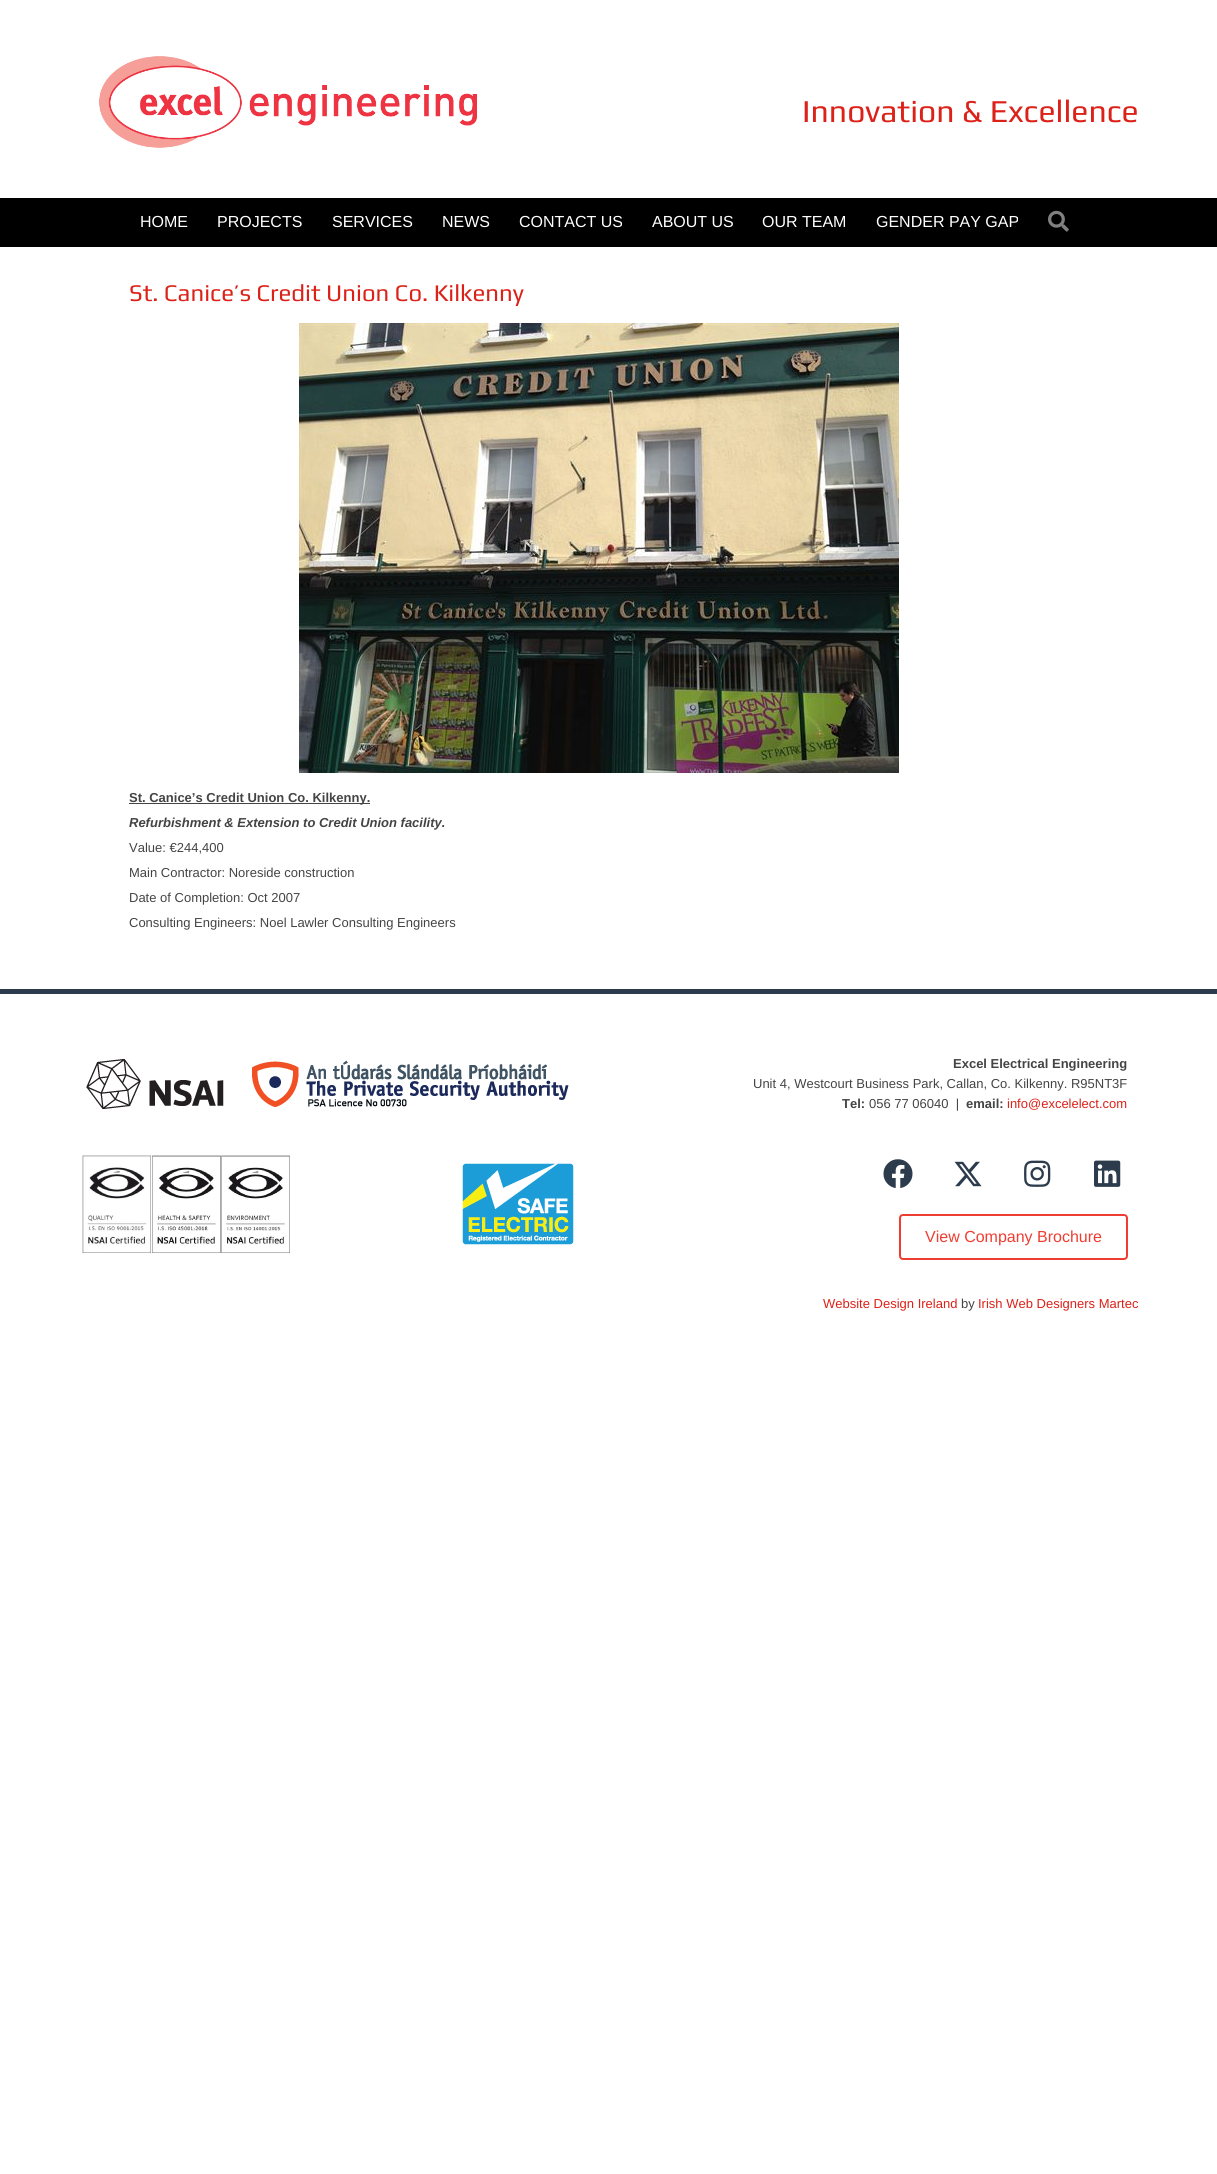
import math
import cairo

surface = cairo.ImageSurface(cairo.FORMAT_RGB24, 1217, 2174)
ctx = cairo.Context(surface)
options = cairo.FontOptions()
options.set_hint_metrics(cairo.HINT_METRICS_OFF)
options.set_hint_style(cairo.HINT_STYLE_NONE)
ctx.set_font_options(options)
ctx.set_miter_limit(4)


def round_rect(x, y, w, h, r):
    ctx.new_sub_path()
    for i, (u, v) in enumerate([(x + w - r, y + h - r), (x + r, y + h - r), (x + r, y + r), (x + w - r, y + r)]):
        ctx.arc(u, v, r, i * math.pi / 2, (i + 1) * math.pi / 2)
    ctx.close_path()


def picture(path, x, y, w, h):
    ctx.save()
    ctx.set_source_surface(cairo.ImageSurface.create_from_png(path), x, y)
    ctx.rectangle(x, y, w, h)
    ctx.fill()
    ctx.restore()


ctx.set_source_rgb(1, 1, 1)
ctx.paint()
picture("img1.png", 99, 56, 378, 92)
ctx.select_font_face("Play")
ctx.set_font_size(32)
ctx.set_source_rgb(0.863, 0.129, 0.094)
ctx.move_to(802, 122)
ctx.show_text("Innovation & Excellence")
ctx.set_source_rgb(0, 0, 0)
ctx.rectangle(0, 198, 1217, 49)
ctx.fill()
ctx.select_font_face("Liberation Sans")
ctx.set_font_size(16)
ctx.set_source_rgb(1, 1, 1)
ctx.move_to(140, 227)
ctx.show_text("HOME")
ctx.move_to(217, 227)
ctx.show_text("PROJECTS")
ctx.move_to(332, 227)
ctx.show_text("SERVICES")
ctx.move_to(442, 227)
ctx.show_text("NEWS")
ctx.move_to(519, 227)
ctx.show_text("CONTACT US")
ctx.move_to(652, 227)
ctx.show_text("ABOUT US")
ctx.move_to(762, 227)
ctx.show_text("OUR TEAM")
ctx.move_to(876, 227)
ctx.show_text("GENDER PAY GAP")
picture("img2.png", 1048, 210, 21, 22)
ctx.select_font_face("Play")
ctx.set_font_size(24)
ctx.set_source_rgb(0.863, 0.129, 0.094)
ctx.move_to(129, 301)
ctx.show_text("St. Canice’s Credit Union Co. Kilkenny")
picture("img3.png", 299, 323, 600, 450)
ctx.set_source_rgb(0.267, 0.267, 0.267)
ctx.rectangle(129, 803, 241, 1)
ctx.fill()
ctx.select_font_face("Liberation Sans", cairo.FONT_SLANT_NORMAL, cairo.FONT_WEIGHT_BOLD)
ctx.set_font_size(13)
ctx.move_to(129, 802)
ctx.show_text("St. Canice’s Credit Union Co. Kilkenny.")
ctx.select_font_face("Liberation Sans", cairo.FONT_SLANT_ITALIC, cairo.FONT_WEIGHT_BOLD)
ctx.move_to(129, 827)
ctx.show_text("Refurbishment & Extension to Credit Union facility.")
ctx.select_font_face("Liberation Sans")
ctx.move_to(129, 852)
ctx.show_text("Value: €244,400")
ctx.move_to(129, 877)
ctx.show_text("Main Contractor: Noreside construction")
ctx.move_to(129, 902)
ctx.show_text("Date of Completion: Oct 2007")
ctx.move_to(129, 927)
ctx.show_text("Consulting Engineers: Noel Lawler Consulting Engineers")
ctx.set_source_rgb(0.173, 0.235, 0.298)
ctx.rectangle(0, 989, 1217, 5)
ctx.fill()
picture("img4.png", 86, 1059, 483, 50)
picture("img5.png", 82, 1155, 208, 99)
picture("img6.png", 462, 1163, 112, 82)
ctx.select_font_face("Liberation Sans", cairo.FONT_SLANT_NORMAL, cairo.FONT_WEIGHT_BOLD)
ctx.set_source_rgb(0.267, 0.267, 0.267)
ctx.move_to(953, 1068)
ctx.show_text("Excel Electrical Engineering")
ctx.select_font_face("Liberation Sans")
ctx.move_to(753, 1088)
ctx.show_text("Unit 4, Westcourt Business Park, Callan, Co. Kilkenny. R95NT3F")
ctx.select_font_face("Liberation Sans", cairo.FONT_SLANT_NORMAL, cairo.FONT_WEIGHT_BOLD)
ctx.move_to(842, 1108)
ctx.show_text("Tel:")
ctx.select_font_face("Liberation Sans")
ctx.move_to(869, 1108)
ctx.show_text("056 77 06040  |")
ctx.select_font_face("Liberation Sans", cairo.FONT_SLANT_NORMAL, cairo.FONT_WEIGHT_BOLD)
ctx.move_to(966, 1108)
ctx.show_text("email:")
ctx.select_font_face("Liberation Sans")
ctx.set_source_rgb(0.863, 0.129, 0.094)
ctx.move_to(1007, 1108)
ctx.show_text("info@excelelect.com")
picture("img7.png", 883, 1159, 30, 29)
picture("img8.png", 954, 1161, 28, 26)
picture("img9.png", 1024, 1160, 27, 27)
picture("img10.png", 1094, 1160, 27, 27)
round_rect(900, 1215, 227, 44, 3)
ctx.set_source_rgb(0.933, 0.239, 0.196)
ctx.stroke()
ctx.set_font_size(16)
ctx.move_to(925, 1242)
ctx.show_text("View Company Brochure")
ctx.set_font_size(13)
ctx.set_source_rgb(0.863, 0.129, 0.094)
ctx.move_to(823, 1308)
ctx.show_text("Website Design Ireland")
ctx.set_source_rgb(0.267, 0.267, 0.267)
ctx.move_to(961, 1308)
ctx.show_text("by")
ctx.set_source_rgb(0.863, 0.129, 0.094)
ctx.move_to(978, 1308)
ctx.show_text("Irish Web Designers Martec")
surface.write_to_png("page.png")
